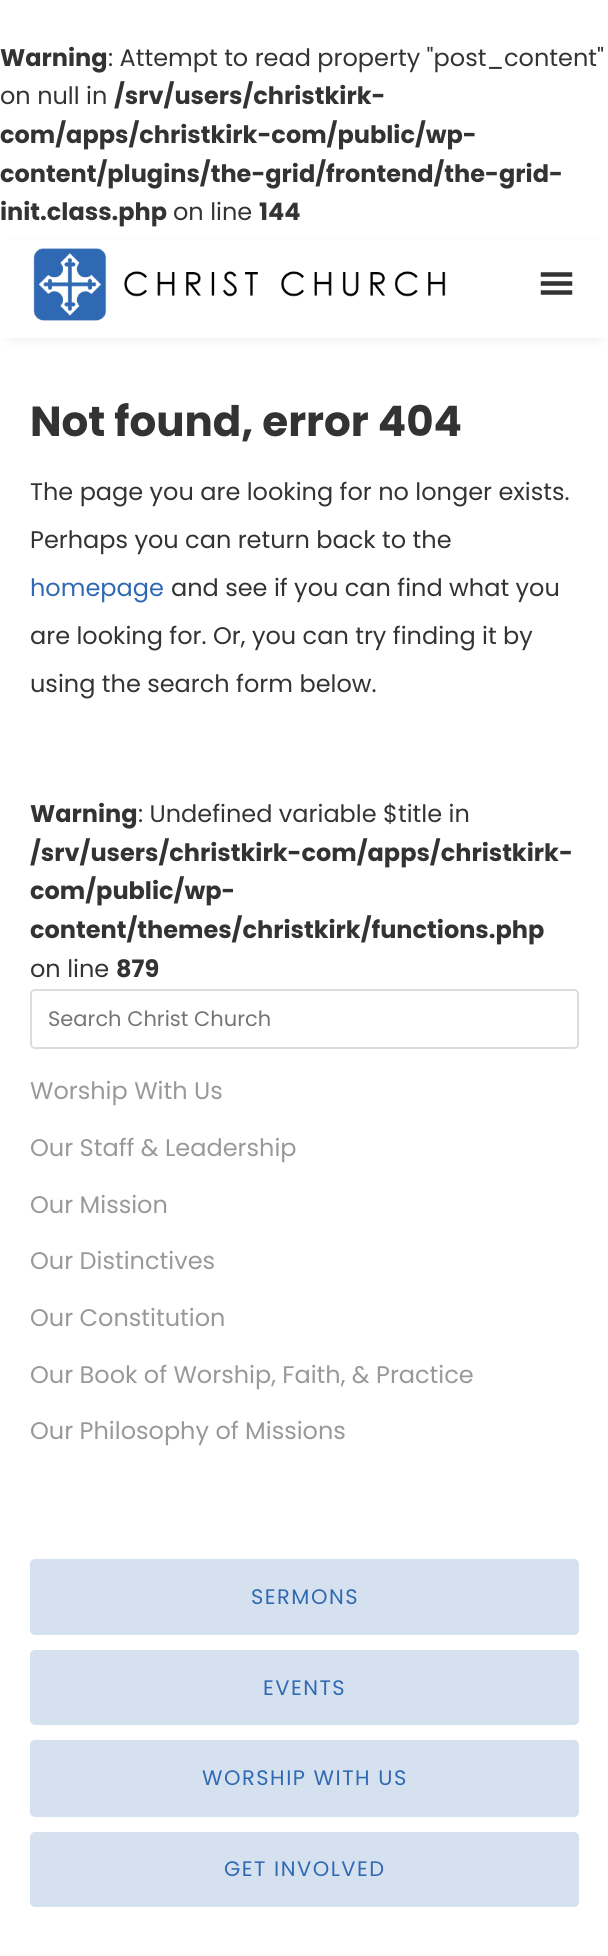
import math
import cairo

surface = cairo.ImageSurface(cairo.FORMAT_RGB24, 608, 1956)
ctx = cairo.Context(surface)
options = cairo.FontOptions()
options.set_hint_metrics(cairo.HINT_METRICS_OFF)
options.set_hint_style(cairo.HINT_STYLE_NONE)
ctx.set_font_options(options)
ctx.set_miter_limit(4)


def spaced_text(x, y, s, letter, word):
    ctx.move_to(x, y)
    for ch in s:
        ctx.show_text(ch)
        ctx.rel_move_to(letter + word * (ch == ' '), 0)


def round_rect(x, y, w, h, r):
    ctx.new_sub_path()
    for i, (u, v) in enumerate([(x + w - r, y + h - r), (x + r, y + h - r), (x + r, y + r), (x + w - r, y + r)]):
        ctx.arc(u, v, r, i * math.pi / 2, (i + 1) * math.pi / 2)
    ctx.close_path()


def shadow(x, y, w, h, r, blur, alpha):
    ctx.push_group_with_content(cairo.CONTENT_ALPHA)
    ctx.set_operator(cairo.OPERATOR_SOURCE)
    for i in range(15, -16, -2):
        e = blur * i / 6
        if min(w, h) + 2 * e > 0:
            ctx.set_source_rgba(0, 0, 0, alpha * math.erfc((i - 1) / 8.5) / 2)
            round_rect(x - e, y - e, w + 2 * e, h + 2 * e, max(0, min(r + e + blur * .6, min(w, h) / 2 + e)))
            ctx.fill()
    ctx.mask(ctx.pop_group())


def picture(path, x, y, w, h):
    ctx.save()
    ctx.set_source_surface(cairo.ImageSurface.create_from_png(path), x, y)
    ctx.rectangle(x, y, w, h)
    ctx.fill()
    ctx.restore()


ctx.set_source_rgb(1, 1, 1)
ctx.paint()
ctx.select_font_face("Poppins", cairo.FONT_SLANT_NORMAL, cairo.FONT_WEIGHT_BOLD)
ctx.set_font_size(24)
ctx.set_source_rgb(0.2, 0.2, 0.2)
ctx.move_to(0, 66)
ctx.show_text("Warning")
ctx.select_font_face("Poppins")
ctx.move_to(108, 66)
ctx.show_text(": Attempt to read property \"post_content\"")
ctx.move_to(0, 104)
ctx.show_text("on null in")
ctx.select_font_face("Poppins", cairo.FONT_SLANT_NORMAL, cairo.FONT_WEIGHT_BOLD)
ctx.move_to(114, 104)
ctx.show_text("/srv/users/christkirk-")
ctx.move_to(0, 143)
ctx.show_text("com/apps/christkirk-com/public/wp-")
ctx.move_to(0, 182)
ctx.show_text("content/plugins/the-grid/frontend/the-grid-")
ctx.move_to(0, 220)
ctx.show_text("init.class.php")
ctx.select_font_face("Poppins")
ctx.move_to(173, 220)
ctx.show_text("on line")
ctx.select_font_face("Poppins", cairo.FONT_SLANT_NORMAL, cairo.FONT_WEIGHT_BOLD)
ctx.move_to(259, 220)
ctx.show_text("144")
ctx.set_source_rgb(0, 0, 0)
shadow(12, 252, 585, 81, 0, 7.5, 0.2)
ctx.set_source_rgb(1, 1, 1)
ctx.rectangle(0, 240, 608, 98)
ctx.fill()
picture("img1.png", 33, 248, 413, 73)
picture("img2.png", 540, 272, 33, 23)
ctx.set_font_size(42)
ctx.set_source_rgb(0.2, 0.2, 0.2)
ctx.move_to(30, 436)
ctx.show_text("Not found, error 404")
ctx.select_font_face("Poppins")
ctx.set_font_size(24)
ctx.move_to(30, 500)
ctx.show_text("The page you are looking for no longer exists.")
ctx.move_to(30, 548)
ctx.show_text("Perhaps you can return back to the")
ctx.set_source_rgb(0.188, 0.412, 0.702)
ctx.move_to(30, 596)
ctx.show_text("homepage")
ctx.set_source_rgb(0.2, 0.2, 0.2)
ctx.move_to(171, 596)
ctx.show_text("and see if you can find what you")
ctx.move_to(30, 644)
ctx.show_text("are looking for. Or, you can try finding it by")
ctx.move_to(30, 692)
ctx.show_text("using the search form below.")
ctx.select_font_face("Poppins", cairo.FONT_SLANT_NORMAL, cairo.FONT_WEIGHT_BOLD)
ctx.move_to(30, 822)
ctx.show_text("Warning")
ctx.select_font_face("Poppins")
ctx.move_to(138, 822)
ctx.show_text(": Undefined variable $title in")
ctx.select_font_face("Poppins", cairo.FONT_SLANT_NORMAL, cairo.FONT_WEIGHT_BOLD)
ctx.move_to(30, 861)
ctx.show_text("/srv/users/christkirk-com/apps/christkirk-")
ctx.move_to(30, 899)
ctx.show_text("com/public/wp-")
ctx.move_to(30, 938)
ctx.show_text("content/themes/christkirk/functions.php")
ctx.select_font_face("Poppins")
ctx.move_to(30, 977)
ctx.show_text("on line")
ctx.select_font_face("Poppins", cairo.FONT_SLANT_NORMAL, cairo.FONT_WEIGHT_BOLD)
ctx.move_to(116, 977)
ctx.show_text("879")
round_rect(31, 990, 547, 58, 4)
ctx.set_source_rgb(0.863, 0.863, 0.863)
ctx.stroke()
ctx.select_font_face("Poppins")
ctx.set_font_size(21)
ctx.set_source_rgb(0.459, 0.459, 0.459)
ctx.move_to(48, 1026)
ctx.show_text("Search Christ Church")
ctx.set_font_size(24)
ctx.set_source_rgb(0.6, 0.6, 0.6)
ctx.move_to(30, 1099)
ctx.show_text("Worship With Us")
ctx.move_to(30, 1156)
ctx.show_text("Our Staff & Leadership")
ctx.move_to(30, 1213)
ctx.show_text("Our Mission")
ctx.move_to(30, 1269)
ctx.show_text("Our Distinctives")
ctx.move_to(30, 1326)
ctx.show_text("Our Constitution")
ctx.move_to(30, 1383)
ctx.show_text("Our Book of Worship, Faith, & Practice")
ctx.move_to(30, 1439)
ctx.show_text("Our Philosophy of Missions")
ctx.set_source_rgb(0.839, 0.882, 0.941)
round_rect(30, 1559, 549, 76, 5)
ctx.fill()
ctx.set_font_size(21)
ctx.set_source_rgb(0.188, 0.412, 0.702)
spaced_text(251, 1604, "SERMONS", 1.5, 0)
ctx.set_source_rgb(0.839, 0.882, 0.941)
round_rect(30, 1650, 549, 75, 5)
ctx.fill()
ctx.set_source_rgb(0.188, 0.412, 0.702)
spaced_text(263, 1695, "EVENTS", 1.5, 0)
ctx.set_source_rgb(0.839, 0.882, 0.941)
round_rect(30, 1740, 549, 77, 5)
ctx.fill()
ctx.set_source_rgb(0.188, 0.412, 0.702)
spaced_text(202, 1785, "WORSHIP WITH US", 1.5, 0)
ctx.set_source_rgb(0.839, 0.882, 0.941)
round_rect(30, 1832, 549, 75, 5)
ctx.fill()
ctx.set_source_rgb(0.188, 0.412, 0.702)
spaced_text(224, 1876, "GET INVOLVED", 1.5, 0)
surface.write_to_png("page.png")
